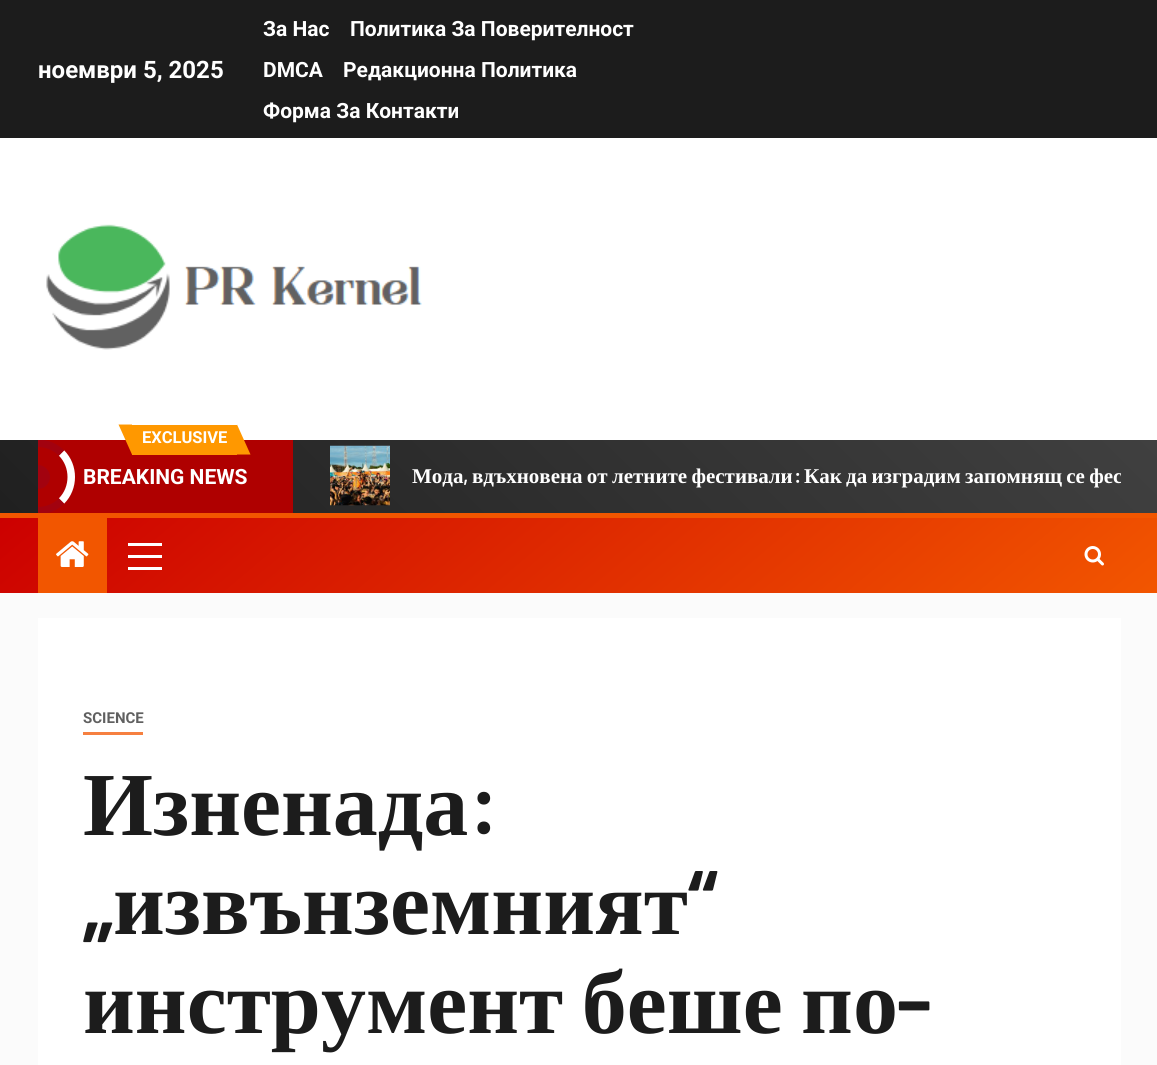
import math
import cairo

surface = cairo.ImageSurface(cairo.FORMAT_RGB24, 1157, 1065)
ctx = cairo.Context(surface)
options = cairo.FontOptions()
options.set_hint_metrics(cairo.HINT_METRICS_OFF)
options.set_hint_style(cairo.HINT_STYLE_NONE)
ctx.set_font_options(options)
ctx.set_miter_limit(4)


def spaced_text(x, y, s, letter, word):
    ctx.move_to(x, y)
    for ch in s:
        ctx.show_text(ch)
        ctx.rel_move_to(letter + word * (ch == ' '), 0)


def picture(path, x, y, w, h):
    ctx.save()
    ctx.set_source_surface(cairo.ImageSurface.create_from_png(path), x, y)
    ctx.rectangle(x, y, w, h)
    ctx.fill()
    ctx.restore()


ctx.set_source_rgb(0.984, 0.984, 0.984)
ctx.paint()
ctx.set_source_rgb(1, 1, 1)
ctx.rectangle(0, 138, 1157, 302)
ctx.fill()
ctx.set_source_rgb(0.11, 0.11, 0.11)
ctx.rectangle(0, 0, 1157, 138)
ctx.fill()
ctx.select_font_face("Roboto", cairo.FONT_SLANT_NORMAL, cairo.FONT_WEIGHT_BOLD)
ctx.set_font_size(24)
ctx.set_source_rgb(1, 1, 1)
ctx.move_to(38, 78)
ctx.show_text("ноември 5, 2025")
ctx.set_font_size(21)
ctx.move_to(263, 36)
ctx.show_text("За Нас")
ctx.move_to(350, 36)
ctx.show_text("Политика За Поверителност")
ctx.move_to(263, 77)
ctx.show_text("DMCA")
ctx.move_to(343, 77)
ctx.show_text("Редакционна Политика")
ctx.move_to(263, 118)
ctx.show_text("Форма За Контакти")
picture("img1.png", 46, 224, 376, 126)
gradient = cairo.LinearGradient(271, 784, 887, 168)
gradient.add_color_stop_rgba(0, 0.125, 0.125, 0.125, 1)
gradient.add_color_stop_rgba(1, 0.251, 0.251, 0.251, 1)
ctx.set_source(gradient)
ctx.rectangle(0, 440, 1157, 73)
ctx.fill()
ctx.set_source_rgb(0.686, 0, 0)
ctx.rectangle(38, 440, 255, 73)
ctx.fill()
ctx.set_source_rgb(1, 0.596, 0)
ctx.rectangle(132, 425, 105, 30)
ctx.fill()
ctx.new_path()
ctx.move_to(118.5, 424.5)
ctx.line_to(132, 424.5)
ctx.line_to(132, 454.5)
ctx.close_path()
ctx.fill()
ctx.set_font_size(16.5)
ctx.set_source_rgb(1, 1, 1)
ctx.move_to(142, 443)
ctx.show_text("EXCLUSIVE")
ctx.set_source_rgb(1, 0.596, 0)
ctx.new_path()
ctx.move_to(250.5, 454.5)
ctx.line_to(237, 454.5)
ctx.line_to(237, 424.5)
ctx.close_path()
ctx.fill()
ctx.new_path()
ctx.move_to(61.5, 453)
ctx.curve_to(74.5, 466, 74.5, 488, 61.5, 501)
ctx.set_source_rgb(1, 1, 1)
ctx.set_line_width(7.5)
ctx.stroke()
ctx.save()
ctx.rectangle(38, 440, 255, 73)
ctx.clip()
ctx.new_path()
ctx.move_to(13.5, 453)
ctx.curve_to(26.5, 440, 48.5, 440, 61.5, 453)
ctx.set_source_rgb(0.635, 0.008, 0.059)
ctx.stroke()
ctx.new_path()
ctx.move_to(61.5, 501)
ctx.curve_to(48.5, 514, 26.5, 514, 13.5, 501)
ctx.stroke()
ctx.restore()
ctx.set_source_rgb(0.635, 0.008, 0.059)
ctx.new_path()
ctx.move_to(38, 465)
ctx.curve_to(44.5, 465, 50, 470.5, 50, 477)
ctx.curve_to(50, 483.5, 44.5, 489, 38, 489)
ctx.close_path()
ctx.fill()
ctx.set_font_size(21)
ctx.set_source_rgb(1, 1, 1)
ctx.move_to(83, 484)
ctx.show_text("BREAKING NEWS")
picture("img2.png", 330, 445, 60, 61)
ctx.select_font_face("Liberation Serif", cairo.FONT_SLANT_NORMAL, cairo.FONT_WEIGHT_BOLD)
ctx.move_to(412, 483)
ctx.show_text("Мода")
ctx.select_font_face("Barlow SemiBold")
ctx.move_to(463, 483)
ctx.show_text(",")
ctx.select_font_face("Liberation Serif", cairo.FONT_SLANT_NORMAL, cairo.FONT_WEIGHT_BOLD)
spaced_text(472, 483, "вдъхновена от летните фестивали", 0, -1)
ctx.select_font_face("Barlow SemiBold")
ctx.move_to(794, 483)
ctx.show_text(":")
ctx.save()
ctx.rectangle(300, 446, 821, 60)
ctx.clip()
ctx.select_font_face("Liberation Serif", cairo.FONT_SLANT_NORMAL, cairo.FONT_WEIGHT_BOLD)
spaced_text(804, 483, "Как да изградим запомнящ се фес", 0, -1)
ctx.restore()
gradient = cairo.LinearGradient(321, 248, 837, 862)
gradient.add_color_stop_rgba(0, 0.8, 0, 0, 1)
gradient.add_color_stop_rgba(1, 0.949, 0.337, 0, 1)
ctx.set_source(gradient)
ctx.rectangle(0, 518, 1157, 75)
ctx.fill()
ctx.set_source_rgb(0.949, 0.337, 0)
ctx.rectangle(0, 513, 1157, 5)
ctx.fill()
ctx.rectangle(38, 518, 69, 75)
ctx.fill()
picture("img3.png", 56, 541, 33, 26)
ctx.set_source_rgb(1, 1, 1)
ctx.rectangle(128, 555, 34, 3)
ctx.fill()
ctx.rectangle(128, 543, 34, 3)
ctx.fill()
ctx.rectangle(128, 567, 34, 3)
ctx.fill()
picture("img4.png", 1084, 546, 20, 20)
ctx.rectangle(38, 618, 1083, 447)
ctx.fill()
ctx.set_source_rgb(0.961, 0.502, 0.251)
ctx.rectangle(83, 732, 60, 3)
ctx.fill()
ctx.select_font_face("Roboto", cairo.FONT_SLANT_NORMAL, cairo.FONT_WEIGHT_BOLD)
ctx.set_font_size(15)
ctx.set_source_rgb(0.376, 0.376, 0.376)
ctx.move_to(83, 723)
ctx.show_text("SCIENCE")
ctx.select_font_face("Liberation Serif", cairo.FONT_SLANT_NORMAL, cairo.FONT_WEIGHT_BOLD)
ctx.set_font_size(90)
ctx.set_source_rgb(0.11, 0.11, 0.11)
ctx.move_to(83, 835)
ctx.show_text("Изненада")
ctx.select_font_face("Barlow SemiBold")
ctx.move_to(468, 835)
ctx.show_text(":")
ctx.move_to(688, 934)
ctx.show_text("“")
ctx.move_to(83, 934)
ctx.show_text("„")
ctx.select_font_face("Liberation Serif", cairo.FONT_SLANT_NORMAL, cairo.FONT_WEIGHT_BOLD)
ctx.move_to(113, 934)
ctx.show_text("извънземният")
spaced_text(83, 1033, "инструмент беше по", 0, -4)
ctx.select_font_face("Barlow SemiBold")
ctx.move_to(896, 1033)
ctx.show_text("-")
surface.write_to_png("page.png")
